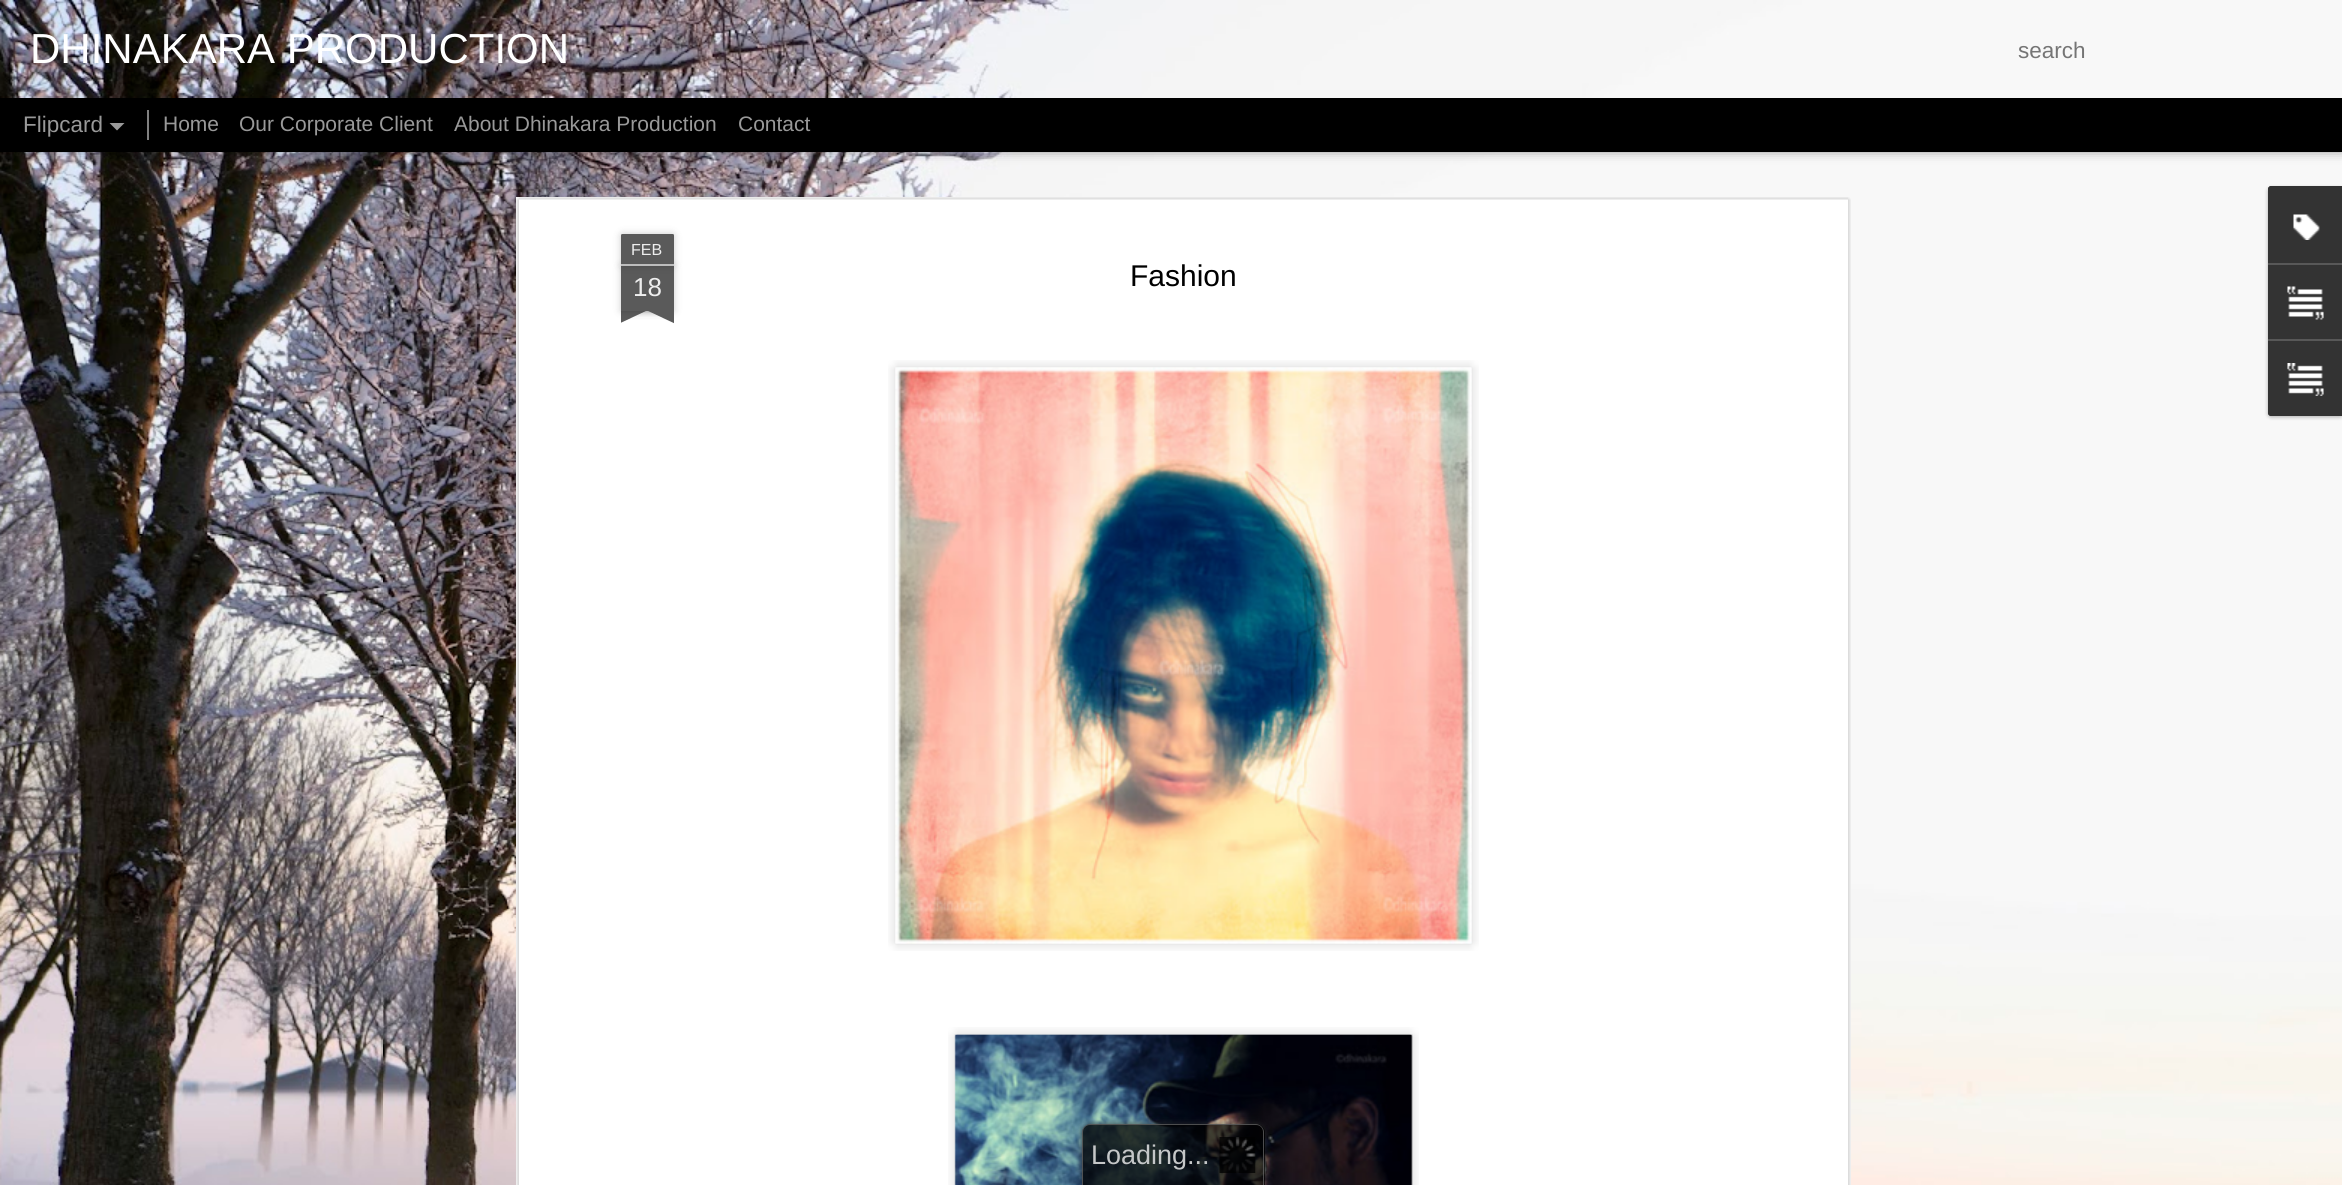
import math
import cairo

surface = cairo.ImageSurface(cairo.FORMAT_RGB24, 2342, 1185)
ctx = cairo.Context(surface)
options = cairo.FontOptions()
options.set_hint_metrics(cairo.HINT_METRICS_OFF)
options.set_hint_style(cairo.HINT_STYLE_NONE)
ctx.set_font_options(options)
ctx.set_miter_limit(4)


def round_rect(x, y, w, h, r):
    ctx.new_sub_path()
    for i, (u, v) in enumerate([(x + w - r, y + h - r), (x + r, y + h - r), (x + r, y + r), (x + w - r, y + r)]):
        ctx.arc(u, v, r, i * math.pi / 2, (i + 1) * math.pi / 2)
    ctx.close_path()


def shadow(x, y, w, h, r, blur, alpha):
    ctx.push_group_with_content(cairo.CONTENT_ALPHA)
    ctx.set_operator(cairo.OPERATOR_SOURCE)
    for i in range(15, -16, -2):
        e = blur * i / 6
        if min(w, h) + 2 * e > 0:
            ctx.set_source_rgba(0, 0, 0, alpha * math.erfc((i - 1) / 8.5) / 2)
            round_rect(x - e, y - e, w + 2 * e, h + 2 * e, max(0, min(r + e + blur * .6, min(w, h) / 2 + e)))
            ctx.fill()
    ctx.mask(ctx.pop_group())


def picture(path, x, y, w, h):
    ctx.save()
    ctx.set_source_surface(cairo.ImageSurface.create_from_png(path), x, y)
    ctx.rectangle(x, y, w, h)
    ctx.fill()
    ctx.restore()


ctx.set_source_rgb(0, 0, 0)
ctx.paint()
picture("img2.png", 0, 152, 2342, 1033)
shadow(0, 98, 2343, 52, 0, 6, 0.5)
picture("img1.png", 0, 0, 2342, 98)
ctx.select_font_face("Liberation Sans")
ctx.set_font_size(42)
ctx.set_source_rgb(1, 1, 1)
ctx.move_to(30, 63)
ctx.show_text("DHINAKARA PRODUCTION")
ctx.set_font_size(22.5)
ctx.set_source_rgb(0.459, 0.459, 0.459)
ctx.move_to(2018, 58)
ctx.show_text("search")
ctx.set_source_rgb(0.6, 0.6, 0.6)
ctx.move_to(23, 132)
ctx.show_text("Flipcard")
ctx.new_path()
ctx.move_to(109.5, 123)
ctx.line_to(124.5, 123)
ctx.line_to(117, 130.5)
ctx.close_path()
ctx.fill()
ctx.set_source_rgb(0.502, 0.502, 0.502)
ctx.rectangle(147, 110, 2, 30)
ctx.fill()
ctx.set_font_size(21)
ctx.set_source_rgb(0.6, 0.6, 0.6)
ctx.move_to(163, 131)
ctx.show_text("Home")
ctx.move_to(239, 131)
ctx.show_text("Our Corporate Client")
ctx.move_to(454, 131)
ctx.show_text("About Dhinakara Production")
ctx.move_to(738, 131)
ctx.show_text("Contact")
ctx.set_source_rgb(1, 1, 1)
ctx.rectangle(516, 197, 1335, 988)
ctx.fill()
picture("img3.png", 516, 197, 1335, 988)
ctx.set_source_rgb(0, 0, 0)
shadow(621, 266, 53, 45, 0, 4, 0.2)
ctx.set_source_rgb(0.353, 0.353, 0.353)
ctx.rectangle(621, 266, 53, 45)
ctx.fill()
ctx.set_source_rgb(0, 0, 0)
shadow(621, 234, 53, 32, 1.5, 4, 0.2)
ctx.set_source_rgb(0.353, 0.353, 0.353)
ctx.new_path()
ctx.move_to(622.5, 234)
ctx.line_to(672.5, 234)
ctx.curve_to(673.5, 234, 674, 234.5, 674, 235.5)
ctx.line_to(674, 266)
ctx.line_to(621, 266)
ctx.line_to(621, 235.5)
ctx.curve_to(621, 234.5, 621.5, 234, 622.5, 234)
ctx.close_path()
ctx.fill()
ctx.set_source_rgb(0.741, 0.741, 0.741)
ctx.rectangle(621, 264, 53, 2)
ctx.fill()
ctx.set_font_size(16)
ctx.set_source_rgb(0.933, 0.933, 0.933)
ctx.move_to(631, 255)
ctx.show_text("FEB")
ctx.set_font_size(26)
ctx.move_to(633, 296)
ctx.show_text("18")
ctx.save()
ctx.rectangle(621, 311, 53, 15)
ctx.clip()
ctx.set_source_rgb(0, 0, 0)
shadow(608, 296, 75, 15, 0, 4, 0.2)
ctx.restore()
ctx.save()
ctx.rectangle(621, 311, 53, 15)
ctx.clip()
ctx.set_source_rgb(0.353, 0.353, 0.353)
ctx.new_path()
ctx.move_to(608, 312)
ctx.line_to(676, 280)
ctx.line_to(682, 294)
ctx.line_to(614, 326)
ctx.close_path()
ctx.fill()
ctx.restore()
ctx.save()
ctx.rectangle(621, 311, 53, 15)
ctx.clip()
ctx.set_source_rgb(0, 0, 0)
shadow(612, 296, 75, 15, 0, 4, 0.2)
ctx.restore()
ctx.save()
ctx.rectangle(621, 311, 53, 15)
ctx.clip()
ctx.set_source_rgb(0.353, 0.353, 0.353)
ctx.new_path()
ctx.move_to(619, 280)
ctx.line_to(687, 312)
ctx.line_to(680, 326)
ctx.line_to(612, 294)
ctx.close_path()
ctx.fill()
ctx.restore()
ctx.set_font_size(30)
ctx.set_source_rgb(0, 0, 0)
ctx.move_to(1130, 286)
ctx.show_text("Fashion")
picture("img4.png", 888, 360, 591, 591)
picture("img5.png", 895, 367, 577, 577)
picture("img6.png", 948, 1027, 471, 158)
picture("img7.png", 954, 1034, 459, 151)
ctx.set_source_rgb(0, 0, 0)
shadow(2268, 188, 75, 229, 3, 2, 0.3)
ctx.set_source_rgb(0.2, 0.2, 0.2)
ctx.new_path()
ctx.move_to(2271, 186)
ctx.line_to(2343, 186)
ctx.line_to(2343, 416)
ctx.line_to(2271, 416)
ctx.curve_to(2269.5, 416, 2268, 414.5, 2268, 413)
ctx.line_to(2268, 189)
ctx.curve_to(2268, 187.5, 2269.5, 186, 2271, 186)
ctx.close_path()
ctx.fill()
ctx.new_path()
ctx.move_to(2271, 186)
ctx.line_to(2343, 186)
ctx.line_to(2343, 263)
ctx.line_to(2268, 263)
ctx.line_to(2268, 189)
ctx.curve_to(2268, 187.5, 2269.5, 186, 2271, 186)
ctx.close_path()
ctx.fill()
picture("img8.png", 2293, 214, 27, 26)
ctx.set_source_rgb(0.345, 0.345, 0.345)
ctx.rectangle(2268, 263, 74, 2)
ctx.fill()
picture("img9.png", 2287, 286, 37, 34)
ctx.set_source_rgb(0.2, 0.2, 0.2)
ctx.new_path()
ctx.move_to(2268, 339)
ctx.line_to(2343, 339)
ctx.line_to(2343, 416)
ctx.line_to(2271, 416)
ctx.curve_to(2269.5, 416, 2268, 414.5, 2268, 413)
ctx.close_path()
ctx.fill()
ctx.set_source_rgb(0.345, 0.345, 0.345)
ctx.rectangle(2268, 339, 74, 2)
ctx.fill()
picture("img10.png", 2287, 363, 37, 33)
ctx.save()
ctx.set_fill_rule(cairo.FILL_RULE_EVEN_ODD)
ctx.new_path()
ctx.move_to(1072, 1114)
ctx.line_to(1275, 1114)
ctx.line_to(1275, 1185)
ctx.line_to(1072, 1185)
ctx.close_path()
ctx.move_to(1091, 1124)
ctx.line_to(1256, 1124)
ctx.curve_to(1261, 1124, 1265, 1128, 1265, 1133)
ctx.line_to(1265, 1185)
ctx.line_to(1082, 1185)
ctx.line_to(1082, 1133)
ctx.curve_to(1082, 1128, 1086, 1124, 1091, 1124)
ctx.close_path()
ctx.clip()
ctx.set_source_rgb(0.2, 0.2, 0.2)
shadow(1082, 1124, 183, 61, 9, 3, 0.75)
ctx.restore()
ctx.set_source_rgba(0, 0, 0, 0.75)
ctx.new_path()
ctx.move_to(1091, 1124)
ctx.line_to(1256, 1124)
ctx.curve_to(1261, 1124, 1265, 1128, 1265, 1133)
ctx.line_to(1265, 1185)
ctx.line_to(1082, 1185)
ctx.line_to(1082, 1133)
ctx.curve_to(1082, 1128, 1086, 1124, 1091, 1124)
ctx.close_path()
ctx.fill()
ctx.set_source_rgba(0.4, 0.4, 0.4, 0.75)
ctx.set_fill_rule(cairo.FILL_RULE_EVEN_ODD)
ctx.new_path()
ctx.move_to(1090, 1124)
ctx.line_to(1256, 1124)
ctx.curve_to(1260, 1124, 1264, 1128, 1264, 1132)
ctx.line_to(1264, 1185)
ctx.line_to(1082, 1185)
ctx.line_to(1082, 1132)
ctx.curve_to(1082, 1128, 1086, 1124, 1090, 1124)
ctx.close_path()
ctx.move_to(1090, 1125)
ctx.line_to(1256, 1125)
ctx.curve_to(1260, 1125, 1263, 1128, 1263, 1132)
ctx.line_to(1263, 1185)
ctx.line_to(1083, 1185)
ctx.line_to(1083, 1132)
ctx.curve_to(1083, 1128, 1086, 1125, 1090, 1125)
ctx.close_path()
ctx.fill()
picture("img11.png", 1219, 1137, 37, 36)
ctx.set_font_size(27)
ctx.set_source_rgb(0.773, 0.78, 0.784)
ctx.move_to(1091, 1164)
ctx.show_text("Loading")
ctx.move_to(1187, 1164)
ctx.show_text("...")
surface.write_to_png("page.png")
